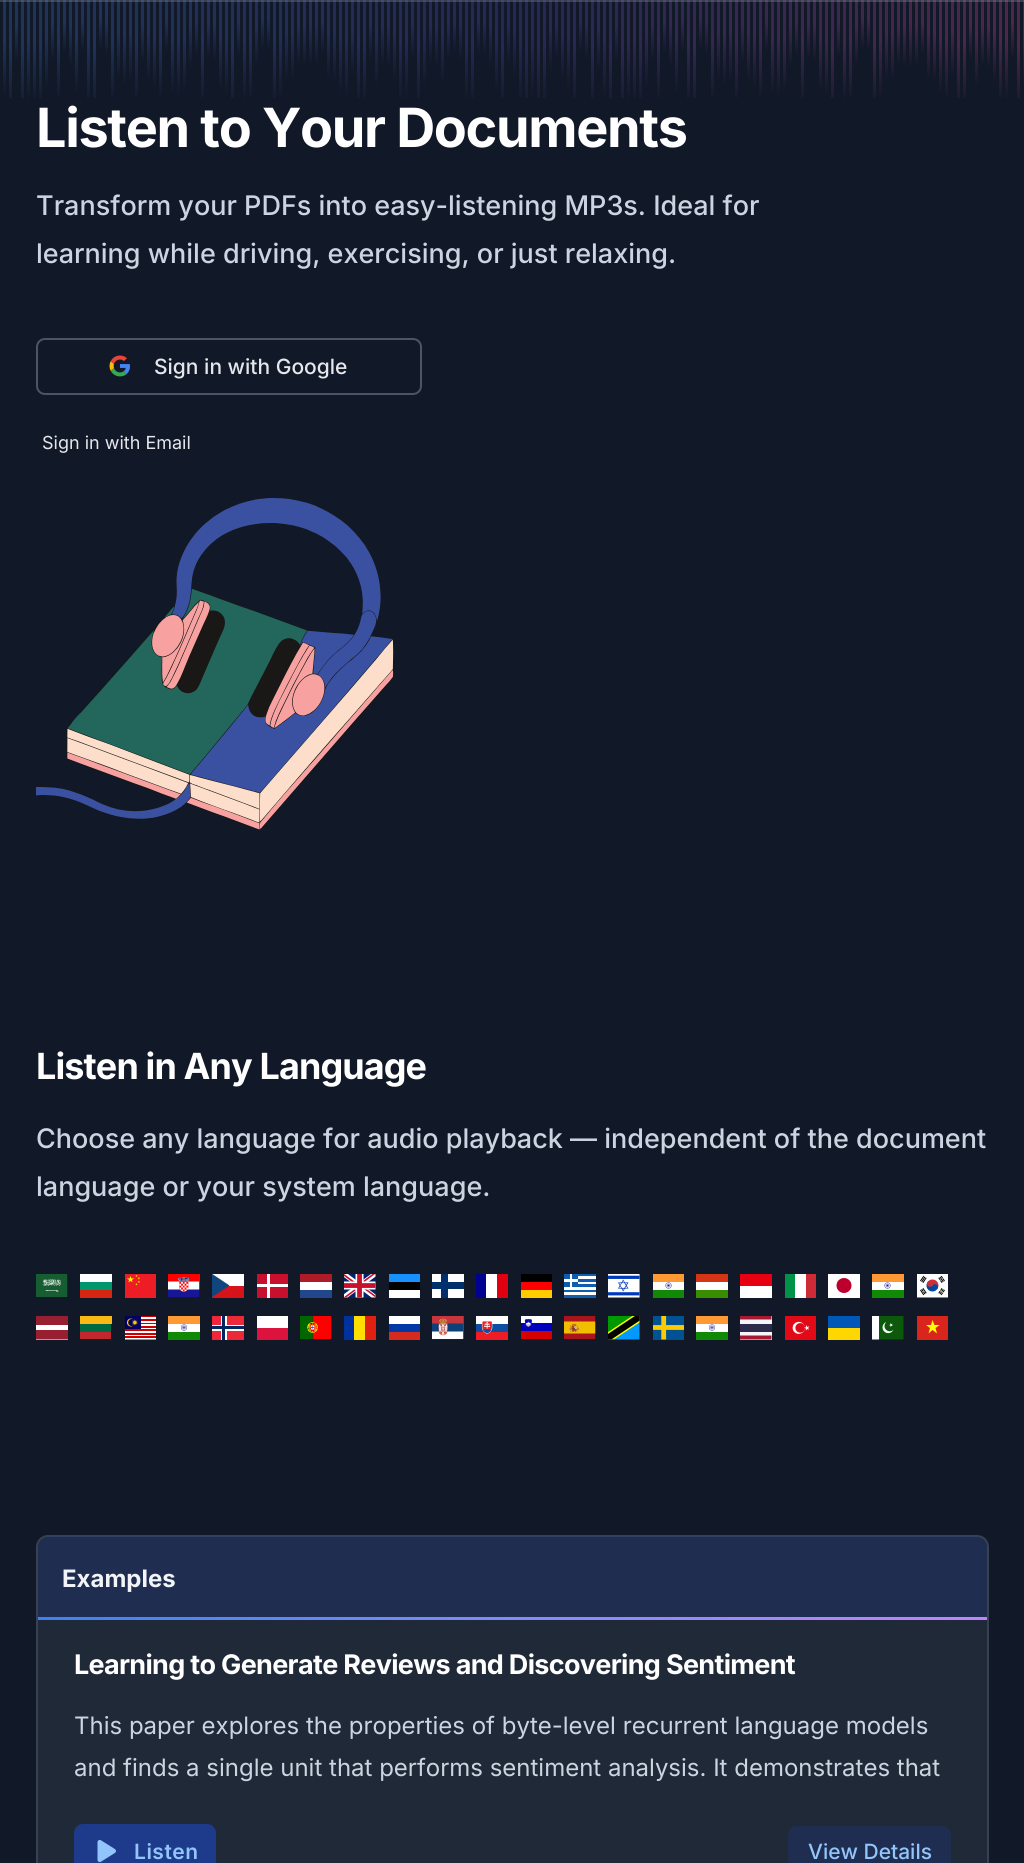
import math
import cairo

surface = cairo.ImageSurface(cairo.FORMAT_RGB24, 1024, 1863)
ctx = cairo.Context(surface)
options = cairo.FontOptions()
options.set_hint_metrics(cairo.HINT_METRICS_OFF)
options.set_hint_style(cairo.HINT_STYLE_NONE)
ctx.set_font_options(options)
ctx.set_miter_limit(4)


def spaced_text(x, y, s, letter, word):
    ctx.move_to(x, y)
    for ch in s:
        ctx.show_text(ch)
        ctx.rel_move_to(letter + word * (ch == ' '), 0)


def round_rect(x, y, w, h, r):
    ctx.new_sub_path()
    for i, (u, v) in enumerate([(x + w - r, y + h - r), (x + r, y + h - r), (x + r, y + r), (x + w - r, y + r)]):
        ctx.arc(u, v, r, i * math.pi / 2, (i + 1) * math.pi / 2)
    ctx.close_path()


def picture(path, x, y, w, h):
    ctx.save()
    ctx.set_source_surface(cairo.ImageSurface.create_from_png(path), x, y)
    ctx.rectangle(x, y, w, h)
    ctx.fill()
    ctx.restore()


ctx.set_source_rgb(0.067, 0.094, 0.153)
ctx.paint()
ctx.set_source_rgb(0.216, 0.255, 0.318)
ctx.rectangle(0, 0, 1024, 2)
ctx.fill()
picture("img1.png", 3, 0, 1021, 98)
ctx.select_font_face("Inter", cairo.FONT_SLANT_NORMAL, cairo.FONT_WEIGHT_BOLD)
ctx.set_font_size(54)
ctx.set_source_rgb(1, 1, 1)
spaced_text(36, 147, "Listen to Your Documents", -1.35, 0)
ctx.select_font_face("Inter Medium")
ctx.set_font_size(27)
ctx.set_source_rgb(0.796, 0.835, 0.882)
ctx.move_to(36, 215)
ctx.show_text("Transform your PDFs into easy-listening MP3s. Ideal for")
ctx.move_to(36, 263)
ctx.show_text("learning while driving, exercising, or just relaxing.")
round_rect(37, 339, 384, 55, 8)
ctx.set_source_rgb(0.294, 0.333, 0.388)
ctx.stroke()
picture("img2.png", 109, 355, 21, 22)
ctx.set_font_size(21)
ctx.set_source_rgb(0.898, 0.906, 0.922)
ctx.move_to(154, 374)
ctx.show_text("Sign in with Google")
ctx.select_font_face("Inter")
ctx.set_font_size(18)
ctx.move_to(42, 449)
ctx.show_text("Sign in with Email")
picture("img3.png", 36, 497, 358, 333)
ctx.select_font_face("Inter", cairo.FONT_SLANT_NORMAL, cairo.FONT_WEIGHT_BOLD)
ctx.set_font_size(36)
ctx.set_source_rgb(1, 1, 1)
spaced_text(36, 1079, "Listen in Any Language", -0.9, 0)
ctx.select_font_face("Inter Medium")
ctx.set_font_size(27)
ctx.set_source_rgb(0.796, 0.835, 0.882)
ctx.move_to(36, 1148)
ctx.show_text("Choose any language for audio playback — independent of the document")
ctx.move_to(36, 1196)
ctx.show_text("language or your system language.")
picture("img4.png", 36, 1274, 32, 23)
ctx.set_source_rgb(1, 1, 1)
ctx.rectangle(80, 1274, 32, 8)
ctx.fill()
ctx.set_source_rgb(0, 0.588, 0.431)
ctx.rectangle(80, 1282, 32, 8)
ctx.fill()
ctx.set_source_rgb(0.839, 0.149, 0.071)
ctx.rectangle(80, 1290, 32, 8)
ctx.fill()
picture("img5.png", 125, 1274, 31, 24)
picture("img6.png", 168, 1274, 32, 24)
ctx.set_source_rgb(1, 1, 1)
ctx.rectangle(212, 1274, 32, 12)
ctx.fill()
ctx.set_source_rgb(0.843, 0.078, 0.102)
ctx.rectangle(212, 1286, 32, 12)
ctx.fill()
ctx.save()
ctx.rectangle(212, 1274, 33, 24)
ctx.clip()
ctx.set_source_rgb(0.067, 0.271, 0.494)
ctx.new_path()
ctx.move_to(229.5, 1285.5)
ctx.line_to(211.5, 1273.5)
ctx.line_to(211.5, 1297.5)
ctx.close_path()
ctx.fill()
ctx.restore()
ctx.set_source_rgb(0.784, 0.063, 0.18)
ctx.rectangle(257, 1274, 31, 24)
ctx.fill()
ctx.set_source_rgb(1, 1, 1)
ctx.rectangle(267, 1274, 3, 24)
ctx.fill()
ctx.rectangle(257, 1284, 31, 3)
ctx.fill()
ctx.set_source_rgb(0.682, 0.11, 0.157)
ctx.rectangle(300, 1274, 32, 8)
ctx.fill()
ctx.set_source_rgb(1, 1, 1)
ctx.rectangle(300, 1282, 32, 8)
ctx.fill()
ctx.set_source_rgb(0.129, 0.275, 0.545)
ctx.rectangle(300, 1290, 32, 8)
ctx.fill()
picture("img7.png", 344, 1274, 32, 24)
ctx.set_source_rgb(0.09, 0.569, 1)
ctx.rectangle(389, 1274, 31, 8)
ctx.fill()
ctx.set_source_rgb(0, 0, 0.004)
ctx.rectangle(389, 1282, 31, 8)
ctx.fill()
ctx.set_source_rgb(1, 1, 1)
ctx.rectangle(389, 1290, 31, 8)
ctx.fill()
ctx.rectangle(432, 1274, 32, 24)
ctx.fill()
ctx.set_source_rgb(0, 0.184, 0.424)
ctx.rectangle(432, 1282, 32, 7)
ctx.fill()
ctx.rectangle(441, 1274, 7, 24)
ctx.fill()
ctx.set_source_rgb(1, 1, 1)
ctx.rectangle(486, 1274, 11, 24)
ctx.fill()
ctx.set_source_rgb(0, 0, 0.569)
ctx.rectangle(476, 1274, 10, 24)
ctx.fill()
ctx.set_source_rgb(0.882, 0, 0.059)
ctx.rectangle(497, 1274, 11, 24)
ctx.fill()
ctx.set_source_rgb(1, 0.8, 0)
ctx.rectangle(521, 1290, 31, 8)
ctx.fill()
ctx.set_source_rgb(0, 0, 0.004)
ctx.rectangle(521, 1274, 31, 8)
ctx.fill()
ctx.set_source_rgb(1, 0, 0)
ctx.rectangle(521, 1282, 31, 8)
ctx.fill()
picture("img8.png", 564, 1274, 32, 24)
picture("img9.png", 608, 1274, 32, 24)
picture("img10.png", 653, 1274, 31, 24)
ctx.set_source_rgb(1, 1, 1)
ctx.rectangle(696, 1282, 32, 8)
ctx.fill()
ctx.set_source_rgb(0.22, 0.553, 0)
ctx.rectangle(696, 1290, 32, 8)
ctx.fill()
ctx.set_source_rgb(0.831, 0.208, 0.086)
ctx.rectangle(696, 1274, 32, 8)
ctx.fill()
ctx.set_source_rgb(0.906, 0, 0.067)
ctx.rectangle(740, 1274, 32, 12)
ctx.fill()
ctx.set_source_rgb(1, 1, 1)
ctx.rectangle(740, 1286, 32, 12)
ctx.fill()
ctx.rectangle(795, 1274, 11, 24)
ctx.fill()
ctx.set_source_rgb(0, 0.573, 0.275)
ctx.rectangle(785, 1274, 10, 24)
ctx.fill()
ctx.set_source_rgb(0.808, 0.169, 0.216)
ctx.rectangle(806, 1274, 10, 24)
ctx.fill()
ctx.set_source_rgb(1, 1, 1)
ctx.rectangle(828, 1274, 32, 24)
ctx.fill()
ctx.set_source_rgb(0.737, 0, 0.176)
ctx.arc(844, 1285.5, 7.5, 0, 2 * math.pi)
ctx.fill()
picture("img11.png", 872, 1274, 32, 24)
picture("img12.png", 917, 1274, 31, 24)
ctx.set_source_rgb(1, 1, 1)
ctx.rectangle(36, 1325, 32, 15)
ctx.fill()
ctx.save()
ctx.rectangle(36, 1316, 32, 24)
ctx.clip()
ctx.set_source_rgb(0.596, 0.118, 0.196)
ctx.set_fill_rule(cairo.FILL_RULE_EVEN_ODD)
ctx.new_path()
ctx.move_to(36, 1315.5)
ctx.line_to(68, 1315.5)
ctx.line_to(68, 1325)
ctx.line_to(36, 1325)
ctx.close_path()
ctx.move_to(36, 1330)
ctx.line_to(68, 1330)
ctx.line_to(68, 1339.5)
ctx.line_to(36, 1339.5)
ctx.close_path()
ctx.fill()
ctx.restore()
ctx.set_source_rgb(0, 0.416, 0.267)
ctx.rectangle(80, 1324, 31, 8)
ctx.fill()
ctx.set_source_rgb(0.757, 0.153, 0.176)
ctx.rectangle(80, 1332, 31, 7)
ctx.fill()
ctx.set_source_rgb(0.992, 0.725, 0.075)
ctx.rectangle(80, 1316, 32, 8)
ctx.fill()
picture("img13.png", 125, 1316, 31, 24)
picture("img14.png", 168, 1316, 32, 24)
ctx.set_source_rgb(0.929, 0.161, 0.224)
ctx.rectangle(212, 1316, 32, 24)
ctx.fill()
ctx.set_source_rgb(1, 1, 1)
ctx.rectangle(221, 1316, 6, 24)
ctx.fill()
ctx.rectangle(212, 1325, 32, 6)
ctx.fill()
ctx.set_source_rgb(0, 0.149, 0.392)
ctx.rectangle(222, 1316, 3, 24)
ctx.fill()
ctx.rectangle(212, 1326, 32, 3)
ctx.fill()
ctx.set_source_rgb(1, 1, 1)
ctx.rectangle(257, 1316, 31, 12)
ctx.fill()
ctx.set_source_rgb(0.863, 0.078, 0.235)
ctx.rectangle(257, 1328, 31, 12)
ctx.fill()
picture("img15.png", 300, 1316, 32, 24)
ctx.set_source_rgb(0, 0.192, 0.612)
ctx.rectangle(344, 1316, 10, 24)
ctx.fill()
ctx.set_source_rgb(1, 0.871, 0)
ctx.rectangle(354, 1316, 11, 24)
ctx.fill()
ctx.set_source_rgb(0.871, 0.129, 0.063)
ctx.rectangle(365, 1316, 11, 24)
ctx.fill()
ctx.set_source_rgb(1, 1, 1)
ctx.rectangle(389, 1316, 31, 8)
ctx.fill()
ctx.set_source_rgb(0, 0.224, 0.651)
ctx.rectangle(389, 1324, 31, 8)
ctx.fill()
ctx.set_source_rgb(0.835, 0.169, 0.118)
ctx.rectangle(389, 1332, 31, 8)
ctx.fill()
picture("img16.png", 432, 1316, 32, 24)
picture("img17.png", 476, 1316, 32, 24)
picture("img18.png", 521, 1316, 31, 23)
picture("img19.png", 564, 1316, 32, 24)
picture("img20.png", 608, 1316, 32, 24)
picture("img21.png", 653, 1316, 31, 24)
picture("img14.png", 696, 1316, 32, 24)
ctx.set_source_rgb(0.957, 0.961, 0.973)
ctx.rectangle(740, 1316, 32, 24)
ctx.fill()
ctx.set_source_rgb(0.176, 0.165, 0.29)
ctx.rectangle(740, 1324, 32, 8)
ctx.fill()
ctx.save()
ctx.rectangle(740, 1316, 33, 24)
ctx.clip()
ctx.set_source_rgb(0.647, 0.098, 0.192)
ctx.set_fill_rule(cairo.FILL_RULE_EVEN_ODD)
ctx.new_path()
ctx.move_to(739.5, 1315.5)
ctx.line_to(771.5, 1315.5)
ctx.line_to(771.5, 1319.5)
ctx.line_to(739.5, 1319.5)
ctx.close_path()
ctx.move_to(739.5, 1335.5)
ctx.line_to(771.5, 1335.5)
ctx.line_to(771.5, 1339.5)
ctx.line_to(739.5, 1339.5)
ctx.close_path()
ctx.fill()
ctx.restore()
picture("img22.png", 785, 1316, 31, 24)
ctx.set_source_rgb(1, 0.843, 0)
ctx.rectangle(828, 1328, 32, 12)
ctx.fill()
ctx.set_source_rgb(0, 0.341, 0.722)
ctx.rectangle(828, 1316, 32, 12)
ctx.fill()
picture("img23.png", 872, 1316, 32, 24)
ctx.set_source_rgb(0.855, 0.145, 0.114)
ctx.rectangle(917, 1316, 31, 24)
ctx.fill()
ctx.set_source_rgb(1, 1, 0)
ctx.set_fill_rule(cairo.FILL_RULE_EVEN_ODD)
ctx.new_path()
ctx.move_to(937, 1333.5)
ctx.line_to(932.5, 1330)
ctx.line_to(928.5, 1333.5)
ctx.line_to(930, 1328)
ctx.line_to(926, 1325)
ctx.line_to(931, 1325)
ctx.line_to(932.5, 1320)
ctx.line_to(934.5, 1325)
ctx.line_to(939.5, 1325)
ctx.line_to(935.5, 1328)
ctx.close_path()
ctx.fill()
ctx.set_source_rgb(0.122, 0.161, 0.216)
round_rect(37, 1536, 951, 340, 11)
ctx.fill_preserve()
ctx.set_source_rgb(0.216, 0.255, 0.318)
ctx.stroke()
ctx.set_source_rgba(0.118, 0.227, 0.541, 0.3)
ctx.new_path()
ctx.move_to(50, 1536)
ctx.line_to(975, 1536)
ctx.curve_to(981.5, 1536, 987, 1541.5, 987, 1548)
ctx.line_to(987, 1620)
ctx.line_to(38, 1620)
ctx.line_to(38, 1548)
ctx.curve_to(38, 1541.5, 43.5, 1536, 50, 1536)
ctx.close_path()
ctx.fill()
ctx.select_font_face("Inter", cairo.FONT_SLANT_NORMAL, cairo.FONT_WEIGHT_BOLD)
ctx.set_font_size(24)
ctx.set_source_rgb(0.953, 0.957, 0.965)
ctx.move_to(62, 1587)
ctx.show_text("Examples")
gradient = cairo.LinearGradient(38, 1619, 987, 1619)
gradient.add_color_stop_rgba(0, 0.231, 0.51, 0.965, 1)
gradient.add_color_stop_rgba(0.5, 0.506, 0.549, 0.973, 1)
gradient.add_color_stop_rgba(1, 0.753, 0.518, 0.988, 1)
ctx.set_source(gradient)
ctx.rectangle(38, 1617, 949, 3)
ctx.fill()
ctx.set_font_size(27)
ctx.set_source_rgb(1, 1, 1)
spaced_text(74, 1674, "Learning to Generate Reviews and Discovering Sentiment", -0.68, 0)
ctx.select_font_face("Inter")
ctx.set_font_size(24)
ctx.set_source_rgb(0.796, 0.835, 0.882)
ctx.move_to(74, 1734)
ctx.show_text("This paper explores the properties of byte-level recurrent language models")
ctx.move_to(74, 1776)
ctx.show_text("and finds a single unit that performs sentiment analysis. It demonstrates that")
ctx.set_source_rgb(0.118, 0.227, 0.541)
round_rect(74, 1824, 142, 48, 9)
ctx.fill()
picture("img24.png", 97, 1839, 19, 24)
ctx.select_font_face("Inter SemiBold")
ctx.set_font_size(21)
ctx.set_source_rgb(0.576, 0.773, 0.992)
spaced_text(134, 1859, "Listen", 0.5, 0)
ctx.set_source_rgb(0.122, 0.18, 0.314)
round_rect(788, 1826, 163, 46, 9)
ctx.fill()
ctx.select_font_face("Inter Medium")
ctx.set_source_rgb(0.576, 0.773, 0.992)
ctx.move_to(808, 1859)
ctx.show_text("View Details")
surface.write_to_png("page.png")
